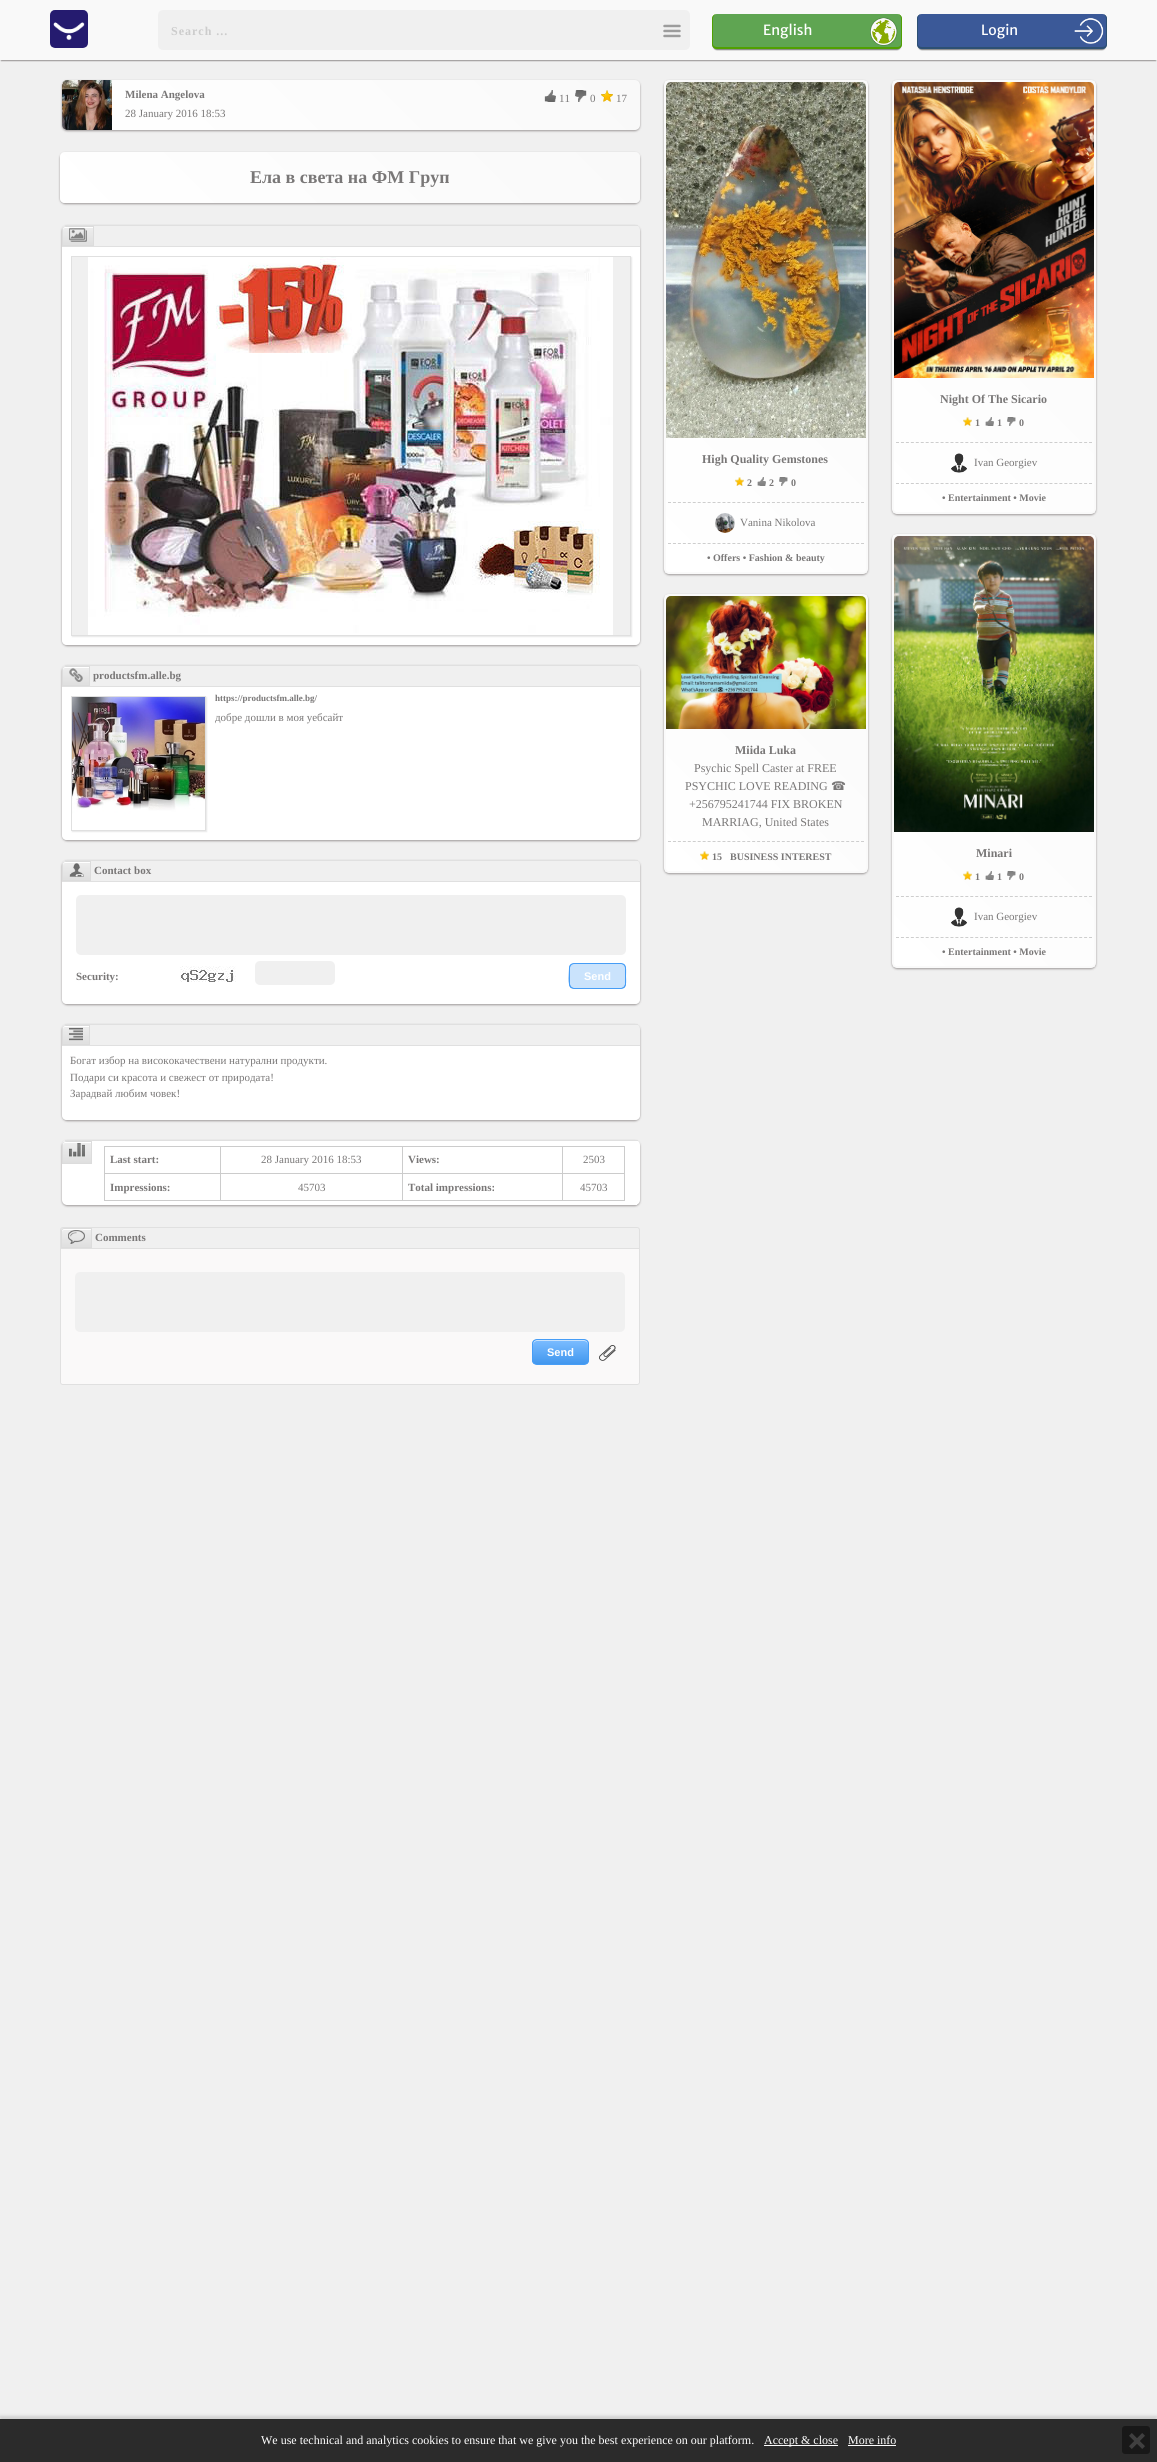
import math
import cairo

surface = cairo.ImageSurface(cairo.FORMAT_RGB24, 1157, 2462)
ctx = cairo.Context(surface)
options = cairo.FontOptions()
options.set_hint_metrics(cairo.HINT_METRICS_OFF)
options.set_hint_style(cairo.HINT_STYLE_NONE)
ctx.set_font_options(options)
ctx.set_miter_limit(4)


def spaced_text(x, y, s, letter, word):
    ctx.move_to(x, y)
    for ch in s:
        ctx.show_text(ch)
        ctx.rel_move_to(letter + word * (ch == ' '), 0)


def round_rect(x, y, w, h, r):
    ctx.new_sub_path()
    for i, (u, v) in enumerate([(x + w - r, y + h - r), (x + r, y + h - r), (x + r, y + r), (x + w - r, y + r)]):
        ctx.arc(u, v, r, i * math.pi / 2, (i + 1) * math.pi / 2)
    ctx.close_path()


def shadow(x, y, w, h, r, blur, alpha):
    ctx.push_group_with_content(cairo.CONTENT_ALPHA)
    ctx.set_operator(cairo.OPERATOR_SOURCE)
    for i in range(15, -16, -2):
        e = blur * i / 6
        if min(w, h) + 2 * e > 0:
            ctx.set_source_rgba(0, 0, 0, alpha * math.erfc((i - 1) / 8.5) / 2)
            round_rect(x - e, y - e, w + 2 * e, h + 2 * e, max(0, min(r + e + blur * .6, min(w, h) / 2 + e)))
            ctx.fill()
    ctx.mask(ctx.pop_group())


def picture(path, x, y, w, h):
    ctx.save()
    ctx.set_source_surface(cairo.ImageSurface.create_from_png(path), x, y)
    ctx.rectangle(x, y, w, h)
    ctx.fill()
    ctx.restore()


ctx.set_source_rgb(0.941, 0.941, 0.941)
ctx.paint()
ctx.set_source_rgb(0.133, 0.098, 0.098)
shadow(1, 3, 1155, 58, 0, 0.5, 0.4)
ctx.set_source_rgb(0.976, 0.976, 0.976)
ctx.rectangle(0, 0, 1157, 60)
ctx.fill()
picture("img1.png", 50, 10, 38, 38)
ctx.set_source_rgb(0.941, 0.941, 0.941)
round_rect(158, 10, 532, 40, 5)
ctx.fill()
ctx.select_font_face("Liberation Serif", cairo.FONT_SLANT_NORMAL, cairo.FONT_WEIGHT_BOLD)
ctx.set_font_size(12)
ctx.set_source_rgb(0.8, 0.8, 0.8)
spaced_text(171, 35, "Search ...", 1, 0)
picture("img2.png", 663, 24, 18, 14)
ctx.set_source_rgb(0.502, 0.502, 0.502)
shadow(713, 17, 188, 33, 4, 0.5, 1)
ctx.set_source_rgb(0.373, 0.647, 0.322)
round_rect(712, 14, 190, 35, 5)
ctx.fill()
picture("img3.png", 870, 17, 28, 29)
ctx.set_source_rgb(0.314, 0.627, 0)
ctx.set_fill_rule(cairo.FILL_RULE_EVEN_ODD)
ctx.new_path()
ctx.move_to(717, 14)
ctx.line_to(897, 14)
ctx.curve_to(900, 14, 902, 16, 902, 19)
ctx.line_to(902, 44)
ctx.curve_to(902, 47, 900, 49, 897, 49)
ctx.line_to(717, 49)
ctx.curve_to(714, 49, 712, 47, 712, 44)
ctx.line_to(712, 19)
ctx.curve_to(712, 16, 714, 14, 717, 14)
ctx.close_path()
ctx.move_to(717, 14)
ctx.line_to(897, 14)
ctx.curve_to(899, 14, 901, 16, 901, 19)
ctx.line_to(901, 44)
ctx.curve_to(901, 46, 899, 47, 897, 47)
ctx.line_to(717, 47)
ctx.curve_to(715, 47, 713, 46, 713, 44)
ctx.line_to(713, 19)
ctx.curve_to(713, 16, 715, 14, 717, 14)
ctx.close_path()
ctx.fill()
ctx.select_font_face("Merriweather Sans")
ctx.set_font_size(14)
ctx.set_source_rgb(1, 1, 1)
ctx.move_to(763, 35)
ctx.show_text("English")
ctx.set_source_rgb(0.502, 0.502, 0.502)
shadow(918, 17, 188, 33, 4, 0.5, 1)
ctx.set_source_rgb(0.231, 0.349, 0.596)
round_rect(917, 14, 190, 35, 5)
ctx.fill()
picture("img4.png", 1074, 18, 30, 26)
ctx.set_source_rgb(0.176, 0.314, 0.451)
ctx.new_path()
ctx.move_to(922, 14)
ctx.line_to(1102, 14)
ctx.curve_to(1105, 14, 1107, 16, 1107, 19)
ctx.line_to(1107, 44)
ctx.curve_to(1107, 47, 1105, 49, 1102, 49)
ctx.line_to(922, 49)
ctx.curve_to(919, 49, 917, 47, 917, 44)
ctx.line_to(917, 19)
ctx.curve_to(917, 16, 919, 14, 922, 14)
ctx.close_path()
ctx.move_to(922, 14)
ctx.line_to(1102, 14)
ctx.curve_to(1104, 14, 1106, 16, 1106, 19)
ctx.line_to(1106, 44)
ctx.curve_to(1106, 46, 1104, 47, 1102, 47)
ctx.line_to(922, 47)
ctx.curve_to(920, 47, 918, 46, 918, 44)
ctx.line_to(918, 19)
ctx.curve_to(918, 16, 920, 14, 922, 14)
ctx.close_path()
ctx.fill()
ctx.set_source_rgb(1, 1, 1)
ctx.move_to(981, 35)
ctx.show_text("Login")
ctx.set_source_rgb(0.133, 0.098, 0.098)
shadow(62, 81, 578, 50, 5, 1, 0.4)
gradient = cairo.LinearGradient(194, 262, 508, -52)
gradient.add_color_stop_rgba(0, 1, 1, 1, 1)
gradient.add_color_stop_rgba(1, 0.976, 0.976, 0.976, 1)
ctx.set_source(gradient)
round_rect(62, 80, 578, 50, 5)
ctx.fill()
picture("img5.png", 62, 80, 50, 50)
ctx.save()
ctx.set_fill_rule(cairo.FILL_RULE_WINDING)
ctx.rectangle(125, 88, 180, 31)
ctx.clip()
ctx.select_font_face("Liberation Serif", cairo.FONT_SLANT_NORMAL, cairo.FONT_WEIGHT_BOLD)
ctx.set_font_size(11)
ctx.set_source_rgb(0.475, 0.467, 0.467)
ctx.move_to(125, 98)
ctx.show_text("Milena Angelova")
ctx.restore()
ctx.select_font_face("Liberation Serif")
ctx.set_font_size(11)
ctx.set_source_rgb(0.475, 0.467, 0.467)
ctx.move_to(125, 117)
ctx.show_text("28 January 2016 18:53")
picture("img6.png", 544, 90, 12, 12)
ctx.move_to(559, 102)
ctx.show_text("11")
picture("img7.png", 575, 90, 12, 12)
ctx.move_to(590, 102)
ctx.show_text("0")
picture("img8.png", 601, 90, 12, 12)
ctx.move_to(616, 102)
ctx.show_text("17")
ctx.save()
ctx.new_path()
ctx.move_to(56, 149)
ctx.line_to(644, 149)
ctx.line_to(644, 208)
ctx.line_to(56, 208)
ctx.close_path()
ctx.move_to(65, 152)
ctx.line_to(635, 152)
ctx.curve_to(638, 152, 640, 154, 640, 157)
ctx.line_to(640, 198)
ctx.curve_to(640, 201, 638, 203, 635, 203)
ctx.line_to(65, 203)
ctx.curve_to(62, 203, 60, 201, 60, 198)
ctx.line_to(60, 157)
ctx.curve_to(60, 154, 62, 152, 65, 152)
ctx.close_path()
ctx.clip()
ctx.set_source_rgb(0.133, 0.098, 0.098)
shadow(60, 153, 580, 51, 5, 1, 0.4)
ctx.restore()
gradient = cairo.LinearGradient(192, 335, 508, 20)
gradient.add_color_stop_rgba(0, 1, 1, 1, 1)
gradient.add_color_stop_rgba(1, 0.976, 0.976, 0.976, 1)
ctx.set_source(gradient)
round_rect(60, 152, 580, 51, 5)
ctx.fill()
ctx.select_font_face("Liberation Serif", cairo.FONT_SLANT_NORMAL, cairo.FONT_WEIGHT_BOLD)
ctx.set_font_size(18)
ctx.set_source_rgb(0.475, 0.467, 0.467)
ctx.move_to(250, 183)
ctx.show_text("Ела в света на ФМ Груп")
ctx.set_source_rgb(0.133, 0.098, 0.098)
shadow(62, 226, 578, 420, 5, 1, 0.4)
ctx.set_source_rgb(0.941, 0.941, 0.941)
round_rect(62, 225, 578, 420, 5)
ctx.fill()
ctx.set_source_rgb(0.878, 0.878, 0.878)
ctx.rectangle(65, 225, 573, 1)
ctx.fill()
gradient = cairo.LinearGradient(63, 227, 63, 245)
gradient.add_color_stop_rgba(0.05, 0.929, 0.929, 0.929, 1)
gradient.add_color_stop_rgba(1, 0.875, 0.875, 0.875, 1)
ctx.set_source(gradient)
ctx.set_fill_rule(cairo.FILL_RULE_WINDING)
ctx.new_path()
ctx.move_to(62, 230)
ctx.line_to(62, 245)
ctx.line_to(94, 245)
ctx.line_to(94, 227)
ctx.line_to(63.5, 227)
ctx.curve_to(62.5, 227.5, 62, 229, 62, 230)
ctx.close_path()
ctx.fill()
ctx.set_source_rgb(1, 1, 1)
ctx.new_path()
ctx.move_to(65, 228)
ctx.line_to(93, 228)
ctx.line_to(93, 227)
ctx.line_to(65, 227)
ctx.curve_to(64, 227, 63, 228, 63, 229)
ctx.line_to(63, 230)
ctx.curve_to(63, 229, 64, 228, 65, 228)
ctx.close_path()
ctx.fill()
ctx.set_source_rgb(0.863, 0.863, 0.863)
ctx.set_fill_rule(cairo.FILL_RULE_EVEN_ODD)
ctx.new_path()
ctx.move_to(67, 226)
ctx.curve_to(64, 226, 62, 228, 62, 230)
ctx.line_to(62, 246)
ctx.line_to(94, 246)
ctx.line_to(94, 226)
ctx.close_path()
ctx.move_to(65, 227)
ctx.curve_to(64, 227, 63, 228, 63, 229)
ctx.line_to(63, 245)
ctx.line_to(93, 245)
ctx.line_to(93, 227)
ctx.close_path()
ctx.fill()
picture("img9.png", 69, 228, 18, 14)
ctx.set_source_rgb(1, 1, 1)
ctx.set_fill_rule(cairo.FILL_RULE_WINDING)
ctx.new_path()
ctx.move_to(62, 247)
ctx.line_to(62, 640)
ctx.curve_to(62, 643, 64, 645, 67, 645)
ctx.line_to(635, 645)
ctx.curve_to(638, 645, 640, 643, 640, 640)
ctx.line_to(640, 247)
ctx.close_path()
ctx.fill()
ctx.set_source_rgb(0.878, 0.878, 0.878)
ctx.rectangle(62, 246, 578, 1)
ctx.fill()
ctx.set_source_rgb(0.914, 0.914, 0.914)
shadow(72, 257, 560, 380, 0, 0.5, 1)
ctx.set_source_rgb(0.941, 0.941, 0.941)
ctx.rectangle(71.5, 256.5, 559, 379)
ctx.fill_preserve()
ctx.set_source_rgb(0.878, 0.878, 0.878)
ctx.set_line_width(1)
ctx.stroke()
picture("img10.png", 88, 257, 525, 378)
ctx.set_source_rgb(0.133, 0.098, 0.098)
shadow(62, 666, 578, 175, 5, 1, 0.4)
ctx.set_source_rgb(0.941, 0.941, 0.941)
round_rect(62, 665, 578, 175, 5)
ctx.fill()
ctx.set_source_rgb(0.878, 0.878, 0.878)
ctx.rectangle(65, 665, 573, 1)
ctx.fill()
gradient = cairo.LinearGradient(63, 667, 63, 685)
gradient.add_color_stop_rgba(0.05, 0.929, 0.929, 0.929, 1)
gradient.add_color_stop_rgba(1, 0.875, 0.875, 0.875, 1)
ctx.set_source(gradient)
ctx.new_path()
ctx.move_to(62, 670)
ctx.line_to(62, 685)
ctx.line_to(90, 685)
ctx.line_to(90, 667)
ctx.line_to(63.5, 667)
ctx.curve_to(62.5, 667.5, 62, 669, 62, 670)
ctx.close_path()
ctx.fill()
ctx.set_source_rgb(1, 1, 1)
ctx.new_path()
ctx.move_to(65, 668)
ctx.line_to(89, 668)
ctx.line_to(89, 667)
ctx.line_to(65, 667)
ctx.curve_to(64, 667, 63, 668, 63, 669)
ctx.line_to(63, 670)
ctx.curve_to(63, 669, 64, 668, 65, 668)
ctx.close_path()
ctx.fill()
ctx.set_source_rgb(0.863, 0.863, 0.863)
ctx.set_fill_rule(cairo.FILL_RULE_EVEN_ODD)
ctx.new_path()
ctx.move_to(67, 666)
ctx.curve_to(64, 666, 62, 668, 62, 670)
ctx.line_to(62, 686)
ctx.line_to(90, 686)
ctx.line_to(90, 666)
ctx.close_path()
ctx.move_to(65, 667)
ctx.curve_to(64, 667, 63, 668, 63, 669)
ctx.line_to(63, 685)
ctx.line_to(89, 685)
ctx.line_to(89, 667)
ctx.close_path()
ctx.fill()
picture("img11.png", 69, 668, 14, 14)
ctx.set_font_size(11)
ctx.set_source_rgb(0.475, 0.467, 0.467)
ctx.move_to(93, 679)
ctx.show_text("productsfm.alle.bg")
ctx.set_source_rgb(1, 1, 1)
ctx.set_fill_rule(cairo.FILL_RULE_WINDING)
ctx.new_path()
ctx.move_to(62, 687)
ctx.line_to(62, 835)
ctx.curve_to(62, 838, 64, 840, 67, 840)
ctx.line_to(635, 840)
ctx.curve_to(638, 840, 640, 838, 640, 835)
ctx.line_to(640, 687)
ctx.close_path()
ctx.fill()
ctx.set_source_rgb(0.878, 0.878, 0.878)
ctx.rectangle(62, 686, 578, 1)
ctx.fill()
ctx.set_source_rgb(0.914, 0.914, 0.914)
shadow(72, 697, 135, 135, 0, 0.5, 1)
ctx.rectangle(71.5, 696.5, 134, 134)
ctx.set_source_rgb(0.878, 0.878, 0.878)
ctx.stroke()
picture("img12.png", 72, 697, 133, 133)
ctx.set_font_size(9)
ctx.set_source_rgb(0.475, 0.467, 0.467)
ctx.move_to(215, 701)
ctx.show_text("https://productsfm.alle.bg/")
ctx.select_font_face("Liberation Serif")
ctx.set_font_size(11)
ctx.move_to(215, 721)
ctx.show_text("добре дошли в моя уебсайт")
ctx.set_source_rgb(0.133, 0.098, 0.098)
shadow(62, 861, 578, 144, 5, 1, 0.4)
ctx.set_source_rgb(0.941, 0.941, 0.941)
round_rect(62, 860, 578, 144, 5)
ctx.fill()
ctx.set_source_rgb(0.878, 0.878, 0.878)
ctx.rectangle(65, 860, 573, 1)
ctx.fill()
gradient = cairo.LinearGradient(63, 862, 63, 880)
gradient.add_color_stop_rgba(0.05, 0.929, 0.929, 0.929, 1)
gradient.add_color_stop_rgba(1, 0.875, 0.875, 0.875, 1)
ctx.set_source(gradient)
ctx.new_path()
ctx.move_to(62, 865)
ctx.line_to(62, 880)
ctx.line_to(91, 880)
ctx.line_to(91, 862)
ctx.line_to(63.5, 862)
ctx.curve_to(62.5, 862.5, 62, 864, 62, 865)
ctx.close_path()
ctx.fill()
ctx.set_source_rgb(1, 1, 1)
ctx.new_path()
ctx.move_to(65, 863)
ctx.line_to(90, 863)
ctx.line_to(90, 862)
ctx.line_to(65, 862)
ctx.curve_to(64, 862, 63, 863, 63, 864)
ctx.line_to(63, 865)
ctx.curve_to(63, 864, 64, 863, 65, 863)
ctx.close_path()
ctx.fill()
ctx.set_source_rgb(0.863, 0.863, 0.863)
ctx.set_fill_rule(cairo.FILL_RULE_EVEN_ODD)
ctx.new_path()
ctx.move_to(67, 861)
ctx.curve_to(64, 861, 62, 863, 62, 865)
ctx.line_to(62, 881)
ctx.line_to(91, 881)
ctx.line_to(91, 861)
ctx.close_path()
ctx.move_to(65, 862)
ctx.curve_to(64, 862, 63, 863, 63, 864)
ctx.line_to(63, 880)
ctx.line_to(90, 880)
ctx.line_to(90, 862)
ctx.close_path()
ctx.fill()
picture("img13.png", 69, 863, 15, 14)
ctx.select_font_face("Liberation Serif", cairo.FONT_SLANT_NORMAL, cairo.FONT_WEIGHT_BOLD)
ctx.set_source_rgb(0.475, 0.467, 0.467)
ctx.move_to(94, 874)
ctx.show_text("Contact box")
ctx.set_source_rgb(1, 1, 1)
ctx.set_fill_rule(cairo.FILL_RULE_WINDING)
ctx.new_path()
ctx.move_to(62, 882)
ctx.line_to(62, 999)
ctx.curve_to(62, 1002, 64, 1004, 67, 1004)
ctx.line_to(635, 1004)
ctx.curve_to(638, 1004, 640, 1002, 640, 999)
ctx.line_to(640, 882)
ctx.close_path()
ctx.fill()
ctx.set_source_rgb(0.878, 0.878, 0.878)
ctx.rectangle(62, 881, 578, 1)
ctx.fill()
ctx.set_source_rgb(0.941, 0.941, 0.941)
round_rect(76, 895, 550, 60, 5)
ctx.fill()
ctx.set_source_rgb(0.475, 0.467, 0.467)
ctx.move_to(76, 980)
ctx.show_text("Security:")
picture("img14.png", 180, 966, 56, 16)
ctx.set_source_rgb(0.941, 0.941, 0.941)
round_rect(255, 961, 80, 24, 5)
ctx.fill()
gradient = cairo.LinearGradient(570, 964, 570, 988)
gradient.add_color_stop_rgba(0.05, 0.475, 0.733, 1, 1)
gradient.add_color_stop_rgba(1, 0.255, 0.592, 0.933, 1)
ctx.set_source(gradient)
ctx.new_path()
ctx.move_to(569, 968)
ctx.curve_to(569, 972, 567, 985, 571, 988)
ctx.line_to(624, 988)
ctx.curve_to(627, 985, 626, 980, 626, 976)
ctx.curve_to(626, 972, 627, 967, 624, 964)
ctx.line_to(571, 964)
ctx.curve_to(570, 965, 569, 966, 569, 968)
ctx.close_path()
ctx.fill()
ctx.set_source_rgb(0.792, 0.89, 0.988)
ctx.new_path()
ctx.move_to(574, 964)
ctx.curve_to(572, 964, 570, 966, 570, 968)
ctx.line_to(570, 984)
ctx.curve_to(570, 986, 572, 988, 574, 988)
ctx.line_to(621, 988)
ctx.curve_to(623, 988, 625, 986, 625, 984)
ctx.line_to(625, 968)
ctx.curve_to(625, 966, 623, 964, 621, 964)
ctx.close_path()
ctx.fill()
round_rect(569.5, 963.5, 56, 25, 4.5)
ctx.set_source_rgb(0.275, 0.616, 0.961)
ctx.stroke()
ctx.select_font_face("Liberation Sans", cairo.FONT_SLANT_NORMAL, cairo.FONT_WEIGHT_BOLD)
ctx.set_source_rgb(1, 1, 1)
ctx.move_to(584, 980)
ctx.show_text("Send")
ctx.set_source_rgb(0.133, 0.098, 0.098)
shadow(62, 1025, 578, 96, 5, 1, 0.4)
ctx.set_source_rgb(0.941, 0.941, 0.941)
round_rect(62, 1024, 578, 96, 5)
ctx.fill()
ctx.set_source_rgb(0.878, 0.878, 0.878)
ctx.rectangle(65, 1024, 573, 1)
ctx.fill()
gradient = cairo.LinearGradient(63, 1026, 63, 1044)
gradient.add_color_stop_rgba(0.05, 0.929, 0.929, 0.929, 1)
gradient.add_color_stop_rgba(1, 0.875, 0.875, 0.875, 1)
ctx.set_source(gradient)
ctx.new_path()
ctx.move_to(62, 1029)
ctx.line_to(62, 1044)
ctx.line_to(90, 1044)
ctx.line_to(90, 1026)
ctx.line_to(63.5, 1026)
ctx.curve_to(62.5, 1026.5, 62, 1028, 62, 1029)
ctx.close_path()
ctx.fill()
ctx.set_source_rgb(1, 1, 1)
ctx.new_path()
ctx.move_to(65, 1027)
ctx.line_to(89, 1027)
ctx.line_to(89, 1026)
ctx.line_to(65, 1026)
ctx.curve_to(64, 1026, 63, 1027, 63, 1028)
ctx.line_to(63, 1029)
ctx.curve_to(63, 1028, 64, 1027, 65, 1027)
ctx.close_path()
ctx.fill()
ctx.set_source_rgb(0.863, 0.863, 0.863)
ctx.set_fill_rule(cairo.FILL_RULE_EVEN_ODD)
ctx.new_path()
ctx.move_to(67, 1025)
ctx.curve_to(64, 1025, 62, 1027, 62, 1029)
ctx.line_to(62, 1045)
ctx.line_to(90, 1045)
ctx.line_to(90, 1025)
ctx.close_path()
ctx.move_to(65, 1026)
ctx.curve_to(64, 1026, 63, 1027, 63, 1028)
ctx.line_to(63, 1044)
ctx.line_to(89, 1044)
ctx.line_to(89, 1026)
ctx.close_path()
ctx.fill()
picture("img15.png", 69, 1027, 14, 14)
ctx.set_source_rgb(1, 1, 1)
ctx.set_fill_rule(cairo.FILL_RULE_WINDING)
ctx.new_path()
ctx.move_to(62, 1046)
ctx.line_to(62, 1115)
ctx.curve_to(62, 1118, 64, 1120, 67, 1120)
ctx.line_to(635, 1120)
ctx.curve_to(638, 1120, 640, 1118, 640, 1115)
ctx.line_to(640, 1046)
ctx.close_path()
ctx.fill()
ctx.set_source_rgb(0.878, 0.878, 0.878)
ctx.rectangle(62, 1045, 578, 1)
ctx.fill()
ctx.select_font_face("Liberation Serif")
ctx.set_source_rgb(0.475, 0.467, 0.467)
ctx.move_to(70, 1064)
ctx.show_text("Богат избор на висококачествени натурални продукти.")
ctx.move_to(70, 1081)
ctx.show_text("Подари си красота и свежест от природата!")
ctx.move_to(70, 1097)
ctx.show_text("Зарадвай любим човек!")
ctx.set_source_rgb(0.133, 0.098, 0.098)
shadow(62, 1141, 578, 65, 5, 1, 0.4)
ctx.set_source_rgb(1, 1, 1)
round_rect(62, 1140, 578, 65, 5)
ctx.fill()
ctx.set_source_rgb(0.878, 0.878, 0.878)
ctx.rectangle(65, 1140, 573, 1)
ctx.fill()
gradient = cairo.LinearGradient(63, 1142, 63, 1163)
gradient.add_color_stop_rgba(0.05, 0.929, 0.929, 0.929, 1)
gradient.add_color_stop_rgba(1, 0.875, 0.875, 0.875, 1)
ctx.set_source(gradient)
ctx.new_path()
ctx.move_to(62, 1145)
ctx.line_to(62, 1163)
ctx.line_to(92, 1163)
ctx.line_to(92, 1142)
ctx.line_to(63.5, 1142)
ctx.curve_to(62.5, 1142.5, 62, 1144, 62, 1145)
ctx.close_path()
ctx.fill()
ctx.set_source_rgb(1, 1, 1)
ctx.new_path()
ctx.move_to(65, 1143)
ctx.line_to(91, 1143)
ctx.line_to(91, 1142)
ctx.line_to(65, 1142)
ctx.curve_to(64, 1142, 63, 1143, 63, 1144)
ctx.line_to(63, 1145)
ctx.curve_to(63, 1144, 64, 1143, 65, 1143)
ctx.close_path()
ctx.fill()
ctx.set_source_rgb(0.863, 0.863, 0.863)
ctx.set_fill_rule(cairo.FILL_RULE_EVEN_ODD)
ctx.new_path()
ctx.move_to(67, 1141)
ctx.curve_to(64, 1141, 62, 1143, 62, 1145)
ctx.line_to(62, 1164)
ctx.line_to(92, 1164)
ctx.line_to(92, 1141)
ctx.close_path()
ctx.move_to(65, 1142)
ctx.curve_to(64, 1142, 63, 1143, 63, 1144)
ctx.line_to(63, 1163)
ctx.line_to(91, 1163)
ctx.line_to(91, 1142)
ctx.close_path()
ctx.fill()
picture("img16.png", 69, 1143, 16, 14)
ctx.set_source_rgb(1, 1, 1)
ctx.set_fill_rule(cairo.FILL_RULE_WINDING)
ctx.new_path()
ctx.move_to(92, 1141)
ctx.line_to(92, 1205)
ctx.line_to(635, 1205)
ctx.line_to(637, 1205)
ctx.line_to(637, 1141)
ctx.line_to(635, 1141)
ctx.close_path()
ctx.fill()
ctx.set_source_rgb(0.8, 0.8, 0.8)
ctx.rectangle(562, 1146, 63, 1)
ctx.fill()
ctx.rectangle(562, 1173, 63, 1)
ctx.fill()
ctx.rectangle(624, 1173, 1, 28)
ctx.fill()
ctx.rectangle(562, 1200, 63, 1)
ctx.fill()
ctx.rectangle(562, 1173, 1, 28)
ctx.fill()
ctx.rectangle(402, 1173, 161, 1)
ctx.fill()
ctx.rectangle(562, 1146, 1, 28)
ctx.fill()
ctx.rectangle(402, 1146, 161, 1)
ctx.fill()
ctx.rectangle(402, 1200, 161, 1)
ctx.fill()
ctx.rectangle(402, 1173, 1, 28)
ctx.fill()
ctx.rectangle(220, 1173, 183, 1)
ctx.fill()
ctx.rectangle(402, 1146, 1, 28)
ctx.fill()
ctx.rectangle(220, 1146, 183, 1)
ctx.fill()
ctx.rectangle(220, 1200, 183, 1)
ctx.fill()
ctx.rectangle(220, 1173, 1, 28)
ctx.fill()
ctx.rectangle(104, 1173, 117, 1)
ctx.fill()
ctx.rectangle(220, 1146, 1, 28)
ctx.fill()
ctx.rectangle(104, 1146, 117, 1)
ctx.fill()
ctx.rectangle(104, 1200, 117, 1)
ctx.fill()
ctx.rectangle(104, 1173, 1, 28)
ctx.fill()
ctx.rectangle(104, 1146, 1, 28)
ctx.fill()
ctx.select_font_face("Liberation Serif", cairo.FONT_SLANT_NORMAL, cairo.FONT_WEIGHT_BOLD)
ctx.set_source_rgb(0.475, 0.467, 0.467)
ctx.move_to(110, 1163)
ctx.show_text("Last start:")
ctx.select_font_face("Liberation Serif")
ctx.move_to(261, 1163)
ctx.show_text("28 January 2016 18:53")
ctx.select_font_face("Liberation Serif", cairo.FONT_SLANT_NORMAL, cairo.FONT_WEIGHT_BOLD)
ctx.move_to(408, 1163)
ctx.show_text("Views:")
ctx.set_source_rgb(0.8, 0.8, 0.8)
ctx.rectangle(624, 1146, 1, 28)
ctx.fill()
ctx.select_font_face("Liberation Serif")
ctx.set_source_rgb(0.475, 0.467, 0.467)
ctx.move_to(583, 1163)
ctx.show_text("2503")
ctx.select_font_face("Liberation Serif", cairo.FONT_SLANT_NORMAL, cairo.FONT_WEIGHT_BOLD)
ctx.move_to(110, 1191)
ctx.show_text("Impressions:")
ctx.select_font_face("Liberation Serif")
ctx.move_to(298, 1191)
ctx.show_text("45703")
ctx.select_font_face("Liberation Serif", cairo.FONT_SLANT_NORMAL, cairo.FONT_WEIGHT_BOLD)
ctx.move_to(408, 1191)
ctx.show_text("Total impressions:")
ctx.select_font_face("Liberation Serif")
ctx.move_to(580, 1191)
ctx.show_text("45703")
round_rect(60.5, 1227.5, 579, 157, 2.5)
ctx.set_source_rgb(0.878, 0.878, 0.878)
ctx.stroke()
gradient = cairo.LinearGradient(62, 1229, 62, 1247)
gradient.add_color_stop_rgba(0.05, 0.929, 0.929, 0.929, 1)
gradient.add_color_stop_rgba(1, 0.875, 0.875, 0.875, 1)
ctx.set_source(gradient)
ctx.rectangle(61, 1229, 30, 18)
ctx.fill()
ctx.set_source_rgb(1, 1, 1)
ctx.new_path()
ctx.move_to(64, 1230)
ctx.line_to(91, 1230)
ctx.line_to(91, 1229)
ctx.line_to(64, 1229)
ctx.curve_to(63, 1229, 62, 1230, 62, 1231)
ctx.line_to(62, 1232)
ctx.curve_to(62, 1231, 63, 1230, 64, 1230)
ctx.close_path()
ctx.fill()
ctx.new_path()
ctx.move_to(64, 1228.5)
ctx.line_to(91.5, 1228.5)
ctx.line_to(91.5, 1247.5)
ctx.line_to(61.5, 1247.5)
ctx.line_to(61.5, 1231)
ctx.curve_to(61.5, 1229.5, 62.5, 1228.5, 64, 1228.5)
ctx.close_path()
ctx.set_source_rgb(0.863, 0.863, 0.863)
ctx.stroke()
picture("img17.png", 68, 1230, 17, 14)
ctx.select_font_face("Liberation Serif", cairo.FONT_SLANT_NORMAL, cairo.FONT_WEIGHT_BOLD)
ctx.set_source_rgb(0.475, 0.467, 0.467)
ctx.move_to(95, 1241)
ctx.show_text("Comments")
ctx.set_source_rgb(0.98, 0.973, 0.973)
ctx.new_path()
ctx.move_to(61, 1249)
ctx.line_to(639, 1249)
ctx.line_to(639, 1382)
ctx.curve_to(639, 1383, 638, 1384, 637, 1384)
ctx.line_to(63, 1384)
ctx.curve_to(62, 1384, 61, 1383, 61, 1382)
ctx.close_path()
ctx.fill()
ctx.set_source_rgb(0.878, 0.878, 0.878)
ctx.rectangle(61, 1248, 578, 1)
ctx.fill()
ctx.set_source_rgb(0.941, 0.941, 0.941)
round_rect(75, 1272, 550, 60, 5)
ctx.fill()
ctx.save()
round_rect(532, 1339, 57, 26, 5)
ctx.clip()
gradient = cairo.LinearGradient(533, 1340, 533, 1364)
gradient.add_color_stop_rgba(0.05, 0.475, 0.733, 1, 1)
gradient.add_color_stop_rgba(1, 0.255, 0.592, 0.933, 1)
ctx.set_source(gradient)
ctx.rectangle(532, 1340, 57, 24)
ctx.fill()
ctx.restore()
ctx.set_source_rgb(0.792, 0.89, 0.988)
ctx.new_path()
ctx.move_to(537, 1341)
ctx.line_to(584, 1341)
ctx.curve_to(586, 1341, 588, 1343, 588, 1345)
ctx.curve_to(588, 1338, 581, 1340, 576, 1340)
ctx.line_to(545, 1340)
ctx.curve_to(540, 1340, 533, 1338, 533, 1345)
ctx.curve_to(533, 1343, 535, 1341, 537, 1341)
ctx.close_path()
ctx.fill()
round_rect(532.5, 1339.5, 56, 25, 4.5)
ctx.set_source_rgb(0.275, 0.616, 0.961)
ctx.stroke()
ctx.select_font_face("Liberation Sans", cairo.FONT_SLANT_NORMAL, cairo.FONT_WEIGHT_BOLD)
ctx.set_source_rgb(1, 1, 1)
ctx.move_to(547, 1356)
ctx.show_text("Send")
picture("img18.png", 599, 1345, 17, 16)
ctx.set_source_rgb(0.133, 0.098, 0.098)
shadow(664, 81, 204, 494, 5, 1, 0.4)
ctx.save()
round_rect(664, 80, 204, 494, 5)
ctx.clip()
gradient = cairo.LinearGradient(394, 10, 739, -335)
gradient.add_color_stop_rgba(0, 1, 1, 1, 1)
gradient.add_color_stop_rgba(1, 0.976, 0.976, 0.976, 1)
ctx.set_source(gradient)
ctx.rectangle(664, 81, 2, 1)
ctx.fill()
gradient = cairo.LinearGradient(794, 10, 1139, -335)
gradient.add_color_stop_rgba(0, 1, 1, 1, 1)
gradient.add_color_stop_rgba(1, 0.976, 0.976, 0.976, 1)
ctx.set_source(gradient)
ctx.rectangle(866, 81, 2, 1)
ctx.fill()
ctx.restore()
gradient = cairo.LinearGradient(594, 500, 939, 155)
gradient.add_color_stop_rgba(0, 1, 1, 1, 1)
gradient.add_color_stop_rgba(1, 0.976, 0.976, 0.976, 1)
ctx.set_source(gradient)
ctx.rectangle(666, 82, 200, 490)
ctx.fill()
ctx.save()
round_rect(664, 80, 204, 494, 5)
ctx.clip()
gradient = cairo.LinearGradient(394, 990, 739, 645)
gradient.add_color_stop_rgba(0, 1, 1, 1, 1)
gradient.add_color_stop_rgba(1, 0.976, 0.976, 0.976, 1)
ctx.set_source(gradient)
ctx.rectangle(664, 572, 2, 1)
ctx.fill()
gradient = cairo.LinearGradient(794, 990, 1139, 645)
gradient.add_color_stop_rgba(0, 1, 1, 1, 1)
gradient.add_color_stop_rgba(1, 0.976, 0.976, 0.976, 1)
ctx.set_source(gradient)
ctx.rectangle(866, 572, 2, 1)
ctx.fill()
ctx.restore()
round_rect(665, 81, 202, 492, 4)
ctx.set_source_rgb(0.98, 0.98, 0.98)
ctx.set_line_width(2)
ctx.stroke()
picture("img19.png", 666, 82, 200, 356)
ctx.select_font_face("Liberation Serif", cairo.FONT_SLANT_NORMAL, cairo.FONT_WEIGHT_BOLD)
ctx.set_font_size(12)
ctx.set_source_rgb(0.475, 0.467, 0.467)
ctx.move_to(702, 463)
ctx.show_text("High Quality Gemstones")
picture("img20.png", 735, 477, 9, 9)
ctx.set_font_size(10)
ctx.move_to(747, 486)
ctx.show_text("2")
picture("img21.png", 757, 477, 9, 9)
ctx.move_to(769, 486)
ctx.show_text("2")
picture("img22.png", 779, 477, 9, 9)
ctx.move_to(791, 486)
ctx.show_text("0")
ctx.new_path()
ctx.move_to(668, 502.5)
ctx.line_to(864, 502.5)
ctx.set_source_rgb(0.808, 0.808, 0.808)
ctx.set_line_width(1)
ctx.set_dash([3, 1.95])
ctx.stroke()
picture("img23.png", 715, 513, 20, 20)
ctx.select_font_face("Liberation Serif")
ctx.set_font_size(11)
ctx.set_source_rgb(0.475, 0.467, 0.467)
ctx.move_to(740, 526)
ctx.show_text("Vanina Nikolova")
ctx.new_path()
ctx.move_to(668, 543.5)
ctx.line_to(864, 543.5)
ctx.set_source_rgb(0.808, 0.808, 0.808)
ctx.stroke()
ctx.select_font_face("Liberation Serif", cairo.FONT_SLANT_NORMAL, cairo.FONT_WEIGHT_BOLD)
ctx.set_font_size(10)
ctx.set_source_rgb(0.475, 0.467, 0.467)
ctx.move_to(707, 561)
ctx.show_text("• Offers • Fashion & beauty")
ctx.set_source_rgb(0.133, 0.098, 0.098)
shadow(664, 595, 204, 279, 5, 1, 0.4)
ctx.save()
round_rect(664, 594, 204, 279, 5)
ctx.clip()
gradient = cairo.LinearGradient(447, 577, 685, 340)
gradient.add_color_stop_rgba(0, 1, 1, 1, 1)
gradient.add_color_stop_rgba(1, 0.976, 0.976, 0.976, 1)
ctx.set_source(gradient)
ctx.rectangle(664, 595, 2, 1)
ctx.fill()
gradient = cairo.LinearGradient(847, 577, 1085, 340)
gradient.add_color_stop_rgba(0, 1, 1, 1, 1)
gradient.add_color_stop_rgba(1, 0.976, 0.976, 0.976, 1)
ctx.set_source(gradient)
ctx.rectangle(866, 595, 2, 1)
ctx.fill()
ctx.restore()
gradient = cairo.LinearGradient(647, 852, 885, 615)
gradient.add_color_stop_rgba(0, 1, 1, 1, 1)
gradient.add_color_stop_rgba(1, 0.976, 0.976, 0.976, 1)
ctx.set_source(gradient)
ctx.rectangle(666, 596, 200, 275)
ctx.fill()
ctx.save()
round_rect(664, 594, 204, 279, 5)
ctx.clip()
gradient = cairo.LinearGradient(447, 1127, 685, 890)
gradient.add_color_stop_rgba(0, 1, 1, 1, 1)
gradient.add_color_stop_rgba(1, 0.976, 0.976, 0.976, 1)
ctx.set_source(gradient)
ctx.rectangle(664, 871, 2, 1)
ctx.fill()
gradient = cairo.LinearGradient(847, 1127, 1085, 890)
gradient.add_color_stop_rgba(0, 1, 1, 1, 1)
gradient.add_color_stop_rgba(1, 0.976, 0.976, 0.976, 1)
ctx.set_source(gradient)
ctx.rectangle(866, 871, 2, 1)
ctx.fill()
ctx.restore()
round_rect(665, 595, 202, 277, 4)
ctx.set_source_rgb(0.98, 0.98, 0.98)
ctx.set_line_width(2)
ctx.set_dash([])
ctx.stroke()
picture("img24.png", 666, 596, 200, 133)
ctx.set_font_size(12)
ctx.set_source_rgb(0.475, 0.467, 0.467)
ctx.move_to(735, 754)
ctx.show_text("Miida Luka")
ctx.select_font_face("Liberation Serif")
ctx.move_to(694, 772)
ctx.show_text("Psychic Spell Caster at FREE")
ctx.move_to(685, 790)
ctx.show_text("PSYCHIC LOVE READING")
ctx.select_font_face("DejaVu Sans")
ctx.move_to(831, 790)
ctx.show_text("☎")
ctx.select_font_face("Liberation Serif")
ctx.move_to(689, 808)
ctx.show_text("+256795241744 FIX BROKEN")
ctx.move_to(702, 826)
ctx.show_text("MARRIAG, United States")
ctx.new_path()
ctx.move_to(668, 841.5)
ctx.line_to(864, 841.5)
ctx.set_source_rgb(0.808, 0.808, 0.808)
ctx.set_line_width(1)
ctx.set_dash([3, 1.95])
ctx.stroke()
picture("img20.png", 700, 851, 9, 9)
ctx.select_font_face("Liberation Serif", cairo.FONT_SLANT_NORMAL, cairo.FONT_WEIGHT_BOLD)
ctx.set_font_size(10)
ctx.set_source_rgb(0.475, 0.467, 0.467)
ctx.move_to(712, 860)
ctx.show_text("15")
ctx.move_to(730, 860)
ctx.show_text("BUSINESS INTEREST")
ctx.set_source_rgb(0.133, 0.098, 0.098)
shadow(892, 81, 204, 434, 5, 1, 0.4)
ctx.save()
round_rect(892, 80, 204, 434, 5)
ctx.clip()
gradient = cairo.LinearGradient(637, 25, 952, -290)
gradient.add_color_stop_rgba(0, 1, 1, 1, 1)
gradient.add_color_stop_rgba(1, 0.976, 0.976, 0.976, 1)
ctx.set_source(gradient)
ctx.rectangle(892, 81, 2, 1)
ctx.fill()
gradient = cairo.LinearGradient(1037, 25, 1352, -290)
gradient.add_color_stop_rgba(0, 1, 1, 1, 1)
gradient.add_color_stop_rgba(1, 0.976, 0.976, 0.976, 1)
ctx.set_source(gradient)
ctx.rectangle(1094, 81, 2, 1)
ctx.fill()
ctx.restore()
gradient = cairo.LinearGradient(837, 455, 1152, 140)
gradient.add_color_stop_rgba(0, 1, 1, 1, 1)
gradient.add_color_stop_rgba(1, 0.976, 0.976, 0.976, 1)
ctx.set_source(gradient)
ctx.rectangle(894, 82, 200, 430)
ctx.fill()
ctx.save()
round_rect(892, 80, 204, 434, 5)
ctx.clip()
gradient = cairo.LinearGradient(637, 885, 952, 570)
gradient.add_color_stop_rgba(0, 1, 1, 1, 1)
gradient.add_color_stop_rgba(1, 0.976, 0.976, 0.976, 1)
ctx.set_source(gradient)
ctx.rectangle(892, 512, 2, 1)
ctx.fill()
gradient = cairo.LinearGradient(1037, 885, 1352, 570)
gradient.add_color_stop_rgba(0, 1, 1, 1, 1)
gradient.add_color_stop_rgba(1, 0.976, 0.976, 0.976, 1)
ctx.set_source(gradient)
ctx.rectangle(1094, 512, 2, 1)
ctx.fill()
ctx.restore()
round_rect(893, 81, 202, 432, 4)
ctx.set_source_rgb(0.98, 0.98, 0.98)
ctx.set_line_width(2)
ctx.set_dash([])
ctx.stroke()
picture("img25.png", 894, 82, 200, 296)
ctx.set_font_size(12)
ctx.set_source_rgb(0.475, 0.467, 0.467)
ctx.move_to(940, 403)
ctx.show_text("Night Of The Sicario")
picture("img26.png", 963, 417, 9, 9)
ctx.set_font_size(10)
ctx.move_to(975, 426)
ctx.show_text("1")
picture("img27.png", 985, 417, 9, 9)
ctx.move_to(997, 426)
ctx.show_text("1")
picture("img22.png", 1007, 417, 9, 9)
ctx.move_to(1019, 426)
ctx.show_text("0")
ctx.new_path()
ctx.move_to(896, 442.5)
ctx.line_to(1092, 442.5)
ctx.set_source_rgb(0.808, 0.808, 0.808)
ctx.set_line_width(1)
ctx.set_dash([3, 1.95])
ctx.stroke()
picture("img28.png", 951, 453, 16, 20)
ctx.select_font_face("Liberation Serif")
ctx.set_font_size(11)
ctx.set_source_rgb(0.475, 0.467, 0.467)
ctx.move_to(974, 466)
ctx.show_text("Ivan Georgiev")
ctx.new_path()
ctx.move_to(896, 483.5)
ctx.line_to(1092, 483.5)
ctx.set_source_rgb(0.808, 0.808, 0.808)
ctx.stroke()
ctx.select_font_face("Liberation Serif", cairo.FONT_SLANT_NORMAL, cairo.FONT_WEIGHT_BOLD)
ctx.set_font_size(10)
ctx.set_source_rgb(0.475, 0.467, 0.467)
ctx.move_to(942, 501)
ctx.show_text("• Entertainment • Movie")
ctx.set_source_rgb(0.133, 0.098, 0.098)
shadow(892, 535, 204, 434, 5, 1, 0.4)
ctx.save()
round_rect(892, 534, 204, 434, 5)
ctx.clip()
gradient = cairo.LinearGradient(637, 479, 952, 164)
gradient.add_color_stop_rgba(0, 1, 1, 1, 1)
gradient.add_color_stop_rgba(1, 0.976, 0.976, 0.976, 1)
ctx.set_source(gradient)
ctx.rectangle(892, 535, 2, 1)
ctx.fill()
gradient = cairo.LinearGradient(1037, 479, 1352, 164)
gradient.add_color_stop_rgba(0, 1, 1, 1, 1)
gradient.add_color_stop_rgba(1, 0.976, 0.976, 0.976, 1)
ctx.set_source(gradient)
ctx.rectangle(1094, 535, 2, 1)
ctx.fill()
ctx.restore()
gradient = cairo.LinearGradient(837, 909, 1152, 594)
gradient.add_color_stop_rgba(0, 1, 1, 1, 1)
gradient.add_color_stop_rgba(1, 0.976, 0.976, 0.976, 1)
ctx.set_source(gradient)
ctx.rectangle(894, 536, 200, 430)
ctx.fill()
ctx.save()
round_rect(892, 534, 204, 434, 5)
ctx.clip()
gradient = cairo.LinearGradient(637, 1339, 952, 1024)
gradient.add_color_stop_rgba(0, 1, 1, 1, 1)
gradient.add_color_stop_rgba(1, 0.976, 0.976, 0.976, 1)
ctx.set_source(gradient)
ctx.rectangle(892, 966, 2, 1)
ctx.fill()
gradient = cairo.LinearGradient(1037, 1339, 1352, 1024)
gradient.add_color_stop_rgba(0, 1, 1, 1, 1)
gradient.add_color_stop_rgba(1, 0.976, 0.976, 0.976, 1)
ctx.set_source(gradient)
ctx.rectangle(1094, 966, 2, 1)
ctx.fill()
ctx.restore()
round_rect(893, 535, 202, 432, 4)
ctx.set_source_rgb(0.98, 0.98, 0.98)
ctx.set_line_width(2)
ctx.set_dash([])
ctx.stroke()
picture("img29.png", 894, 536, 200, 296)
ctx.set_font_size(12)
ctx.set_source_rgb(0.475, 0.467, 0.467)
ctx.move_to(976, 857)
ctx.show_text("Minari")
picture("img26.png", 963, 871, 9, 9)
ctx.set_font_size(10)
ctx.move_to(975, 880)
ctx.show_text("1")
picture("img27.png", 985, 871, 9, 9)
ctx.move_to(997, 880)
ctx.show_text("1")
picture("img22.png", 1007, 871, 9, 9)
ctx.move_to(1019, 880)
ctx.show_text("0")
ctx.new_path()
ctx.move_to(896, 896.5)
ctx.line_to(1092, 896.5)
ctx.set_source_rgb(0.808, 0.808, 0.808)
ctx.set_line_width(1)
ctx.set_dash([3, 1.95])
ctx.stroke()
picture("img28.png", 951, 907, 16, 20)
ctx.select_font_face("Liberation Serif")
ctx.set_font_size(11)
ctx.set_source_rgb(0.475, 0.467, 0.467)
ctx.move_to(974, 920)
ctx.show_text("Ivan Georgiev")
ctx.new_path()
ctx.move_to(896, 937.5)
ctx.line_to(1092, 937.5)
ctx.set_source_rgb(0.808, 0.808, 0.808)
ctx.stroke()
ctx.select_font_face("Liberation Serif", cairo.FONT_SLANT_NORMAL, cairo.FONT_WEIGHT_BOLD)
ctx.set_font_size(10)
ctx.set_source_rgb(0.475, 0.467, 0.467)
ctx.move_to(942, 955)
ctx.show_text("• Entertainment • Movie")
ctx.set_source_rgb(0.094, 0.094, 0.094)
shadow(0, 2416, 1157, 43, 0, 1.5, 0.15)
ctx.set_source_rgb(0.169, 0.169, 0.169)
ctx.rectangle(0, 2419, 1157, 43)
ctx.fill()
ctx.select_font_face("Liberation Serif")
ctx.set_font_size(12)
ctx.set_source_rgb(1, 1, 1)
ctx.move_to(261, 2444)
ctx.show_text("We use technical and analytics cookies to ensure that we give you the best experience on our platform.")
ctx.set_source_rgb(0.996, 0.996, 0.996)
ctx.rectangle(764, 2445, 74, 1)
ctx.fill()
ctx.set_source_rgb(1, 1, 1)
ctx.move_to(764, 2444)
ctx.show_text("Accept & close")
ctx.move_to(848, 2444)
ctx.show_text("More info")
ctx.set_source_rgb(0.996, 0.996, 0.996)
ctx.rectangle(848, 2445, 48, 1)
ctx.fill()
ctx.set_source_rgb(0.094, 0.094, 0.094)
round_rect(1122, 2426, 28, 28, 3)
ctx.fill()
picture("img30.png", 1129, 2433, 16, 16)
surface.write_to_png("page.png")
